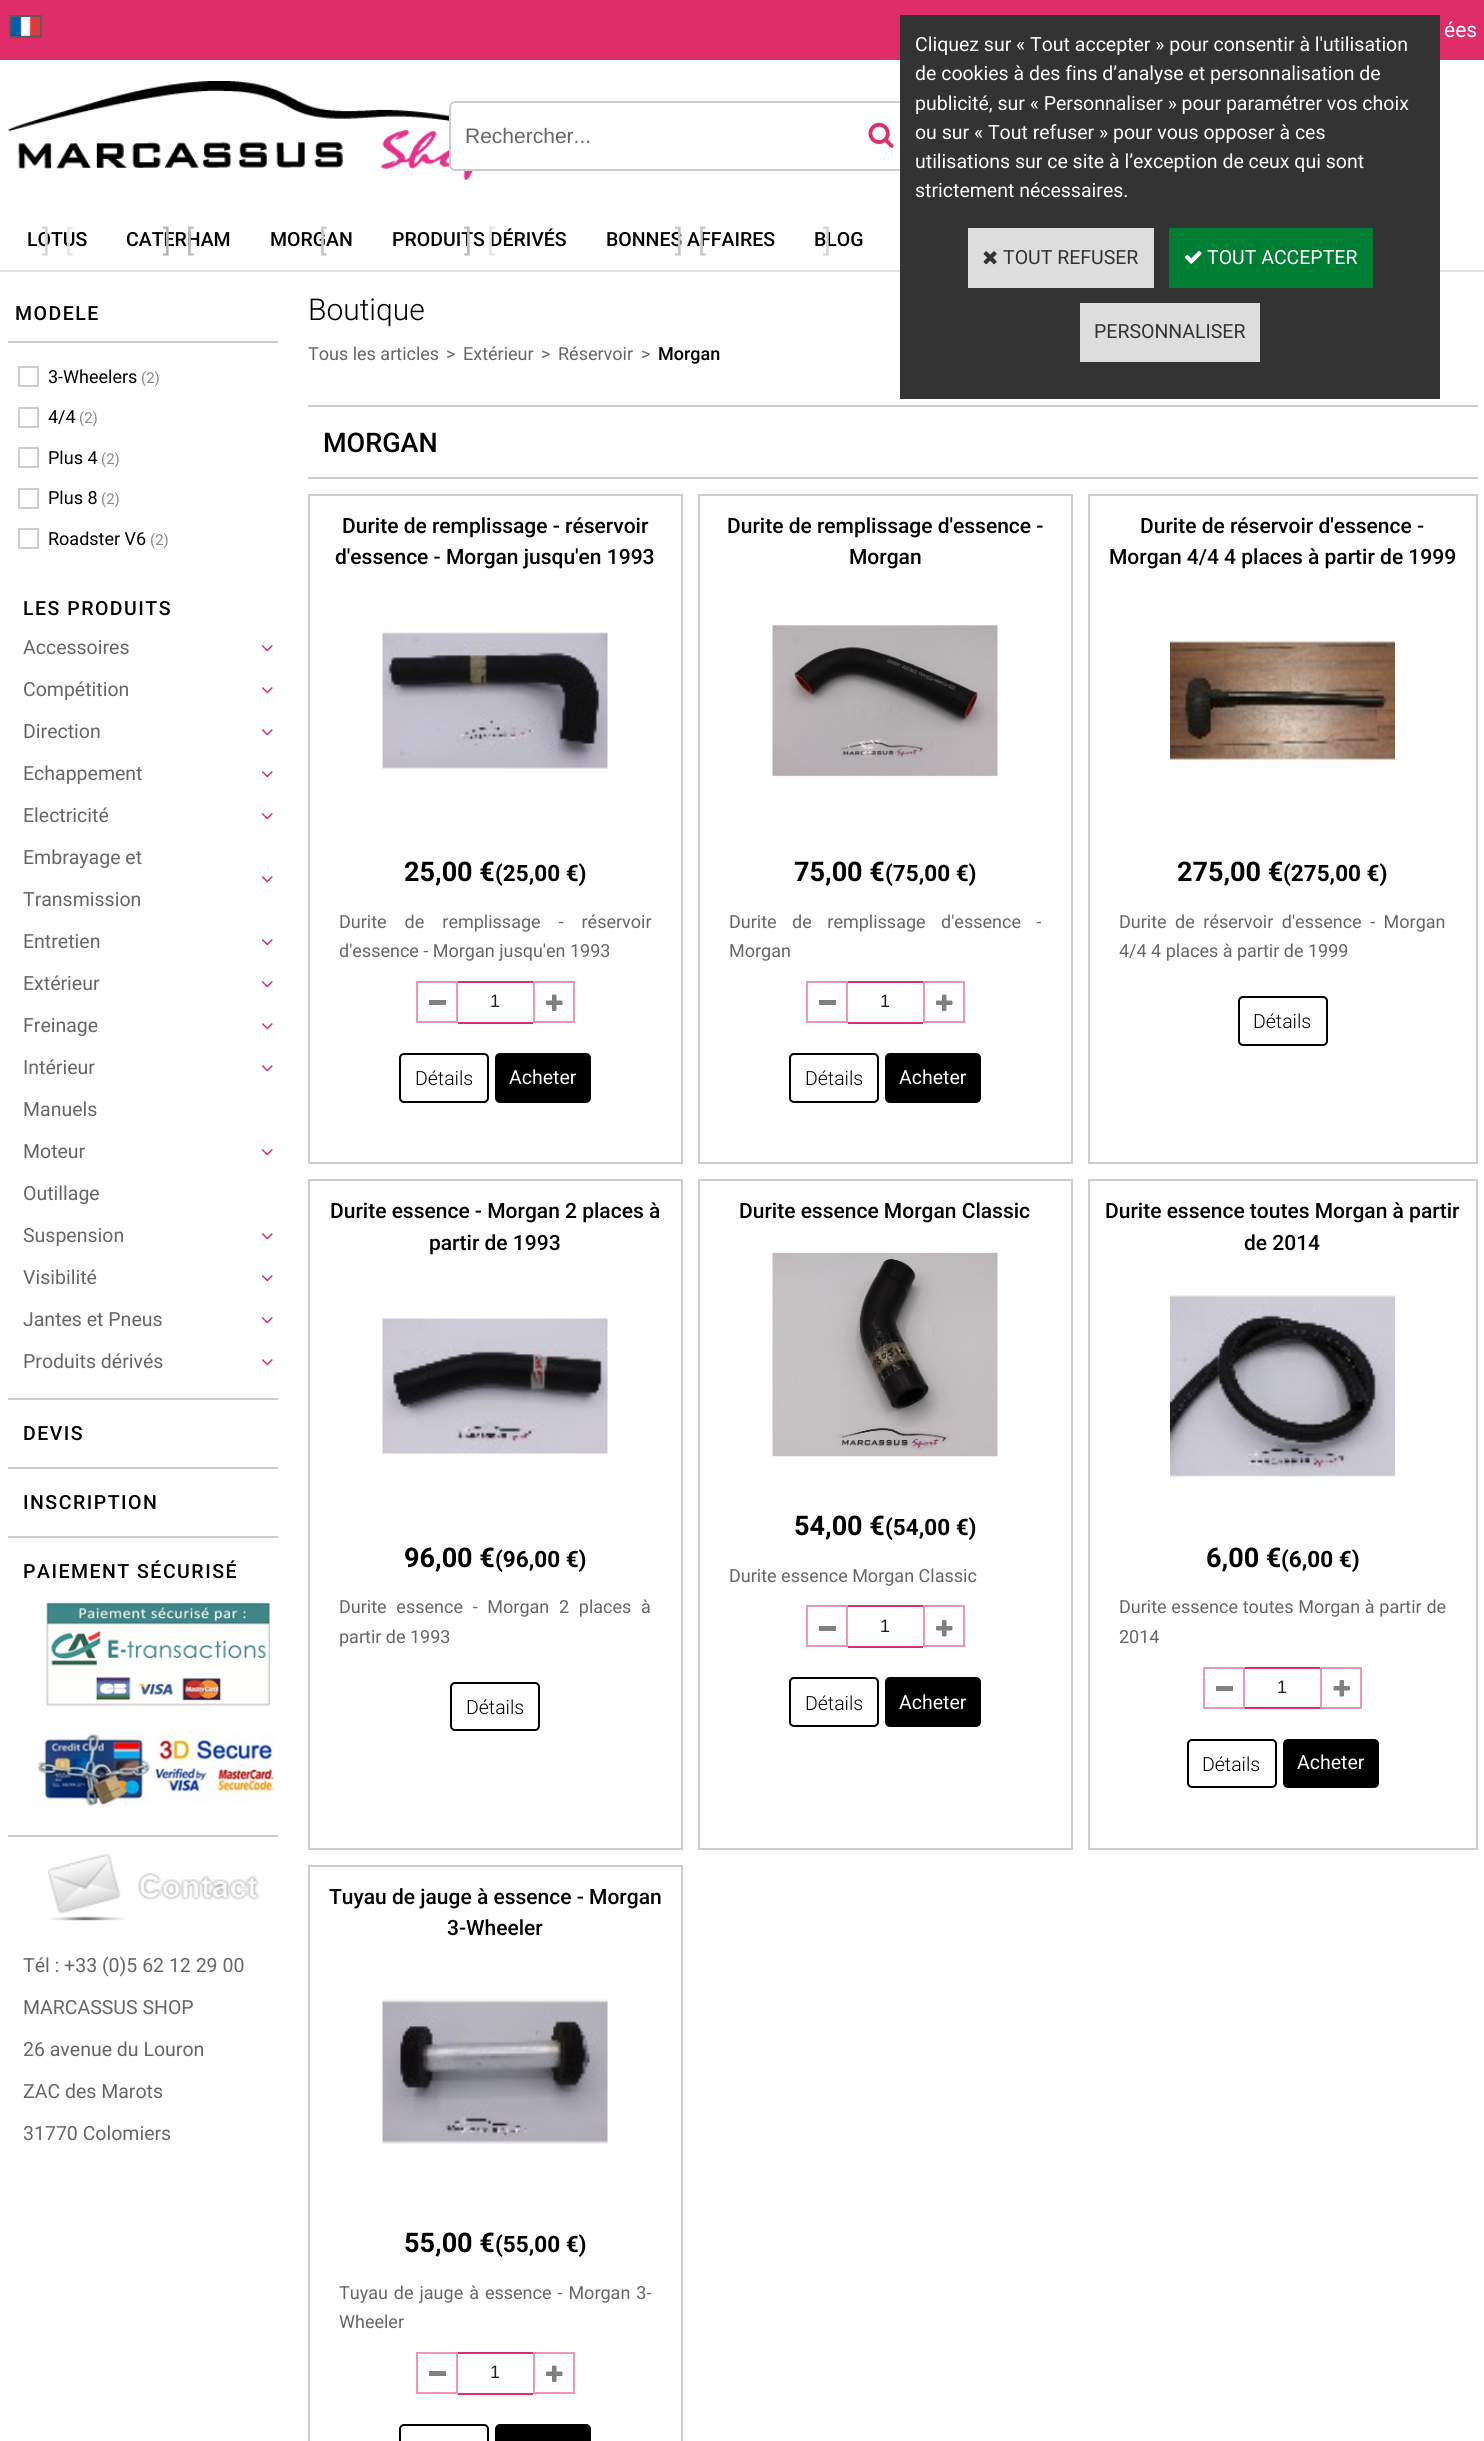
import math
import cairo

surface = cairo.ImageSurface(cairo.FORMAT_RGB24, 1484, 2441)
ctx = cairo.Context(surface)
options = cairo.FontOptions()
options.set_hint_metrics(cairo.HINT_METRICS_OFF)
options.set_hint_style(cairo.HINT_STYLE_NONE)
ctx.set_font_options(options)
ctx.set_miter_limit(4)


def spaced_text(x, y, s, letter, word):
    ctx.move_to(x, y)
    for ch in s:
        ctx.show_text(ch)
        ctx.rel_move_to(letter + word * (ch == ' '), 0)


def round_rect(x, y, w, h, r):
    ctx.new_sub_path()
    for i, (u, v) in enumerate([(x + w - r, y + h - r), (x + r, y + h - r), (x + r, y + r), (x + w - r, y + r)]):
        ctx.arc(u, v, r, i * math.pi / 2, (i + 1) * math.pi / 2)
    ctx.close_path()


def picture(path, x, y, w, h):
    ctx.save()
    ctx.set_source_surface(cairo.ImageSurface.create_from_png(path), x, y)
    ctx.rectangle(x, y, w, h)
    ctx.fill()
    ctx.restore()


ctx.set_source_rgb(1, 1, 1)
ctx.paint()
ctx.set_source_rgb(0.871, 0.176, 0.412)
ctx.rectangle(0, 0, 1484, 60)
ctx.fill()
ctx.set_source_rgb(0.886, 0.886, 0.886)
ctx.rectangle(0, 270, 1484, 2)
ctx.fill()
picture("img1.png", 11, 17, 29, 19)
ctx.rectangle(10, 16, 31, 21)
ctx.set_source_rgb(0.361, 0.361, 0.361)
ctx.stroke()
ctx.select_font_face("Roboto")
ctx.set_font_size(21)
ctx.set_source_rgb(1, 1, 1)
ctx.move_to(1444, 37)
ctx.show_text("ées")
picture("img2.png", 7, 81, 467, 99)
round_rect(450, 102, 458, 68, 5)
ctx.fill_preserve()
ctx.set_source_rgb(0.8, 0.8, 0.8)
ctx.stroke()
ctx.select_font_face("Liberation Sans")
ctx.set_source_rgb(0.4, 0.4, 0.4)
ctx.move_to(465, 143)
ctx.show_text("Rechercher...")
picture("img3.png", 868, 122, 26, 26)
ctx.select_font_face("Roboto Medium")
ctx.set_font_size(19.5)
ctx.set_source_rgb(0, 0, 0)
ctx.move_to(27, 246)
ctx.show_text("LOTUS")
ctx.select_font_face("Roboto")
ctx.set_font_size(30)
ctx.set_source_rgb(0.839, 0.839, 0.839)
ctx.move_to(42, 251)
ctx.show_text("]")
ctx.set_source_rgb(0.902, 0.902, 0.902)
ctx.move_to(65, 251)
ctx.show_text("[")
ctx.select_font_face("Roboto Medium")
ctx.set_font_size(19.5)
ctx.set_source_rgb(0, 0, 0)
ctx.move_to(126, 246)
ctx.show_text("CATERHAM")
ctx.select_font_face("Roboto")
ctx.set_font_size(30)
ctx.set_source_rgb(0.71, 0.71, 0.71)
ctx.move_to(163, 251)
ctx.show_text("]")
ctx.set_source_rgb(0.737, 0.737, 0.737)
ctx.move_to(186, 251)
ctx.show_text("[")
ctx.select_font_face("Roboto Medium")
ctx.set_font_size(19.5)
ctx.set_source_rgb(0, 0, 0)
ctx.move_to(270, 246)
ctx.show_text("MORGAN")
ctx.select_font_face("Roboto")
ctx.set_font_size(30)
ctx.set_source_rgb(0.78, 0.78, 0.78)
ctx.move_to(319, 251)
ctx.show_text("[")
ctx.select_font_face("Roboto Medium")
ctx.set_font_size(19.5)
ctx.set_source_rgb(0, 0, 0)
ctx.move_to(392, 246)
ctx.show_text("PRODUITS DÉRIVÉS")
ctx.select_font_face("Roboto")
ctx.set_font_size(30)
ctx.set_source_rgb(0.737, 0.737, 0.737)
ctx.move_to(464, 251)
ctx.show_text("]")
ctx.set_source_rgb(0.902, 0.902, 0.902)
ctx.move_to(487, 251)
ctx.show_text("[")
ctx.select_font_face("Roboto Medium")
ctx.set_font_size(19.5)
ctx.set_source_rgb(0, 0, 0)
ctx.move_to(606, 246)
ctx.show_text("BONNES AFFAIRES")
ctx.select_font_face("Roboto")
ctx.set_font_size(30)
ctx.set_source_rgb(0.78, 0.78, 0.78)
ctx.move_to(675, 251)
ctx.show_text("]")
ctx.move_to(698, 251)
ctx.show_text("[")
ctx.select_font_face("Roboto Medium")
ctx.set_font_size(19.5)
ctx.set_source_rgb(0, 0, 0)
ctx.move_to(814, 246)
ctx.show_text("BLOG")
ctx.select_font_face("Roboto")
ctx.set_font_size(30)
ctx.set_source_rgb(0.839, 0.839, 0.839)
ctx.move_to(823, 251)
ctx.show_text("]")
ctx.set_source_rgb(0.2, 0.2, 0.2)
ctx.rectangle(900, 15, 540, 384)
ctx.fill()
ctx.set_font_size(19.5)
ctx.set_source_rgb(1, 1, 1)
ctx.move_to(915, 51)
ctx.show_text("Cliquez sur « Tout accepter » pour consentir à l'utilisation")
ctx.move_to(915, 80)
ctx.show_text("de cookies à des fins d’analyse et personnalisation de")
ctx.move_to(915, 110)
ctx.show_text("publicité, sur « Personnaliser » pour paramétrer vos choix")
ctx.move_to(915, 139)
ctx.show_text("ou sur « Tout refuser » pour vous opposer à ces")
ctx.move_to(915, 168)
ctx.show_text("utilisations sur ce site à l’exception de ceux qui sont")
ctx.move_to(915, 197)
ctx.show_text("strictement nécessaires.")
ctx.set_source_rgb(0.867, 0.867, 0.867)
ctx.rectangle(968, 228, 186, 60)
ctx.fill()
picture("img4.png", 983, 251, 14, 14)
ctx.set_source_rgb(0.2, 0.2, 0.2)
ctx.move_to(1003, 264)
ctx.show_text("TOUT REFUSER")
ctx.set_source_rgb(0, 0.494, 0.2)
ctx.rectangle(1169, 228, 204, 60)
ctx.fill()
picture("img5.png", 1184, 250, 18, 14)
ctx.set_source_rgb(1, 1, 1)
ctx.move_to(1207, 264)
ctx.show_text("TOUT ACCEPTER")
ctx.set_source_rgb(0.867, 0.867, 0.867)
ctx.rectangle(1080, 303, 180, 59)
ctx.fill()
ctx.set_source_rgb(0.2, 0.2, 0.2)
ctx.move_to(1094, 338)
ctx.show_text("PERSONNALISER")
ctx.set_source_rgb(0.8, 0.8, 0.8)
ctx.rectangle(8, 341, 270, 2)
ctx.fill()
ctx.select_font_face("Roboto Medium")
ctx.set_source_rgb(0, 0, 0)
spaced_text(15, 320, "MODELE", 1.5, 0)
ctx.rectangle(19, 367, 19, 19)
ctx.set_source_rgb(0.8, 0.8, 0.8)
ctx.stroke()
ctx.select_font_face("Roboto")
ctx.set_font_size(18)
ctx.set_source_rgb(0, 0, 0)
ctx.move_to(48, 383)
ctx.show_text("3-Wheelers")
ctx.set_font_size(15)
ctx.set_source_rgb(0.533, 0.533, 0.533)
ctx.move_to(141, 383)
ctx.show_text("(2)")
ctx.rectangle(19, 408, 19, 19)
ctx.set_source_rgb(0.8, 0.8, 0.8)
ctx.stroke()
ctx.set_font_size(18)
ctx.set_source_rgb(0, 0, 0)
ctx.move_to(48, 423)
ctx.show_text("4/4")
ctx.set_font_size(15)
ctx.set_source_rgb(0.533, 0.533, 0.533)
ctx.move_to(79, 423)
ctx.show_text("(2)")
ctx.rectangle(19, 448, 19, 19)
ctx.set_source_rgb(0.8, 0.8, 0.8)
ctx.stroke()
ctx.set_font_size(18)
ctx.set_source_rgb(0, 0, 0)
ctx.move_to(48, 464)
ctx.show_text("Plus 4")
ctx.set_font_size(15)
ctx.set_source_rgb(0.533, 0.533, 0.533)
ctx.move_to(101, 464)
ctx.show_text("(2)")
ctx.rectangle(19, 489, 19, 19)
ctx.set_source_rgb(0.8, 0.8, 0.8)
ctx.stroke()
ctx.set_font_size(18)
ctx.set_source_rgb(0, 0, 0)
ctx.move_to(48, 504)
ctx.show_text("Plus 8")
ctx.set_font_size(15)
ctx.set_source_rgb(0.533, 0.533, 0.533)
ctx.move_to(101, 504)
ctx.show_text("(2)")
ctx.rectangle(19, 529, 19, 19)
ctx.set_source_rgb(0.8, 0.8, 0.8)
ctx.stroke()
ctx.set_font_size(18)
ctx.set_source_rgb(0, 0, 0)
ctx.move_to(48, 545)
ctx.show_text("Roadster V6")
ctx.set_font_size(15)
ctx.set_source_rgb(0.533, 0.533, 0.533)
ctx.move_to(150, 545)
ctx.show_text("(2)")
ctx.select_font_face("Roboto Medium")
ctx.set_font_size(19.5)
ctx.set_source_rgb(0, 0, 0)
spaced_text(23, 615, "LES PRODUITS", 1.5, 0)
ctx.select_font_face("Roboto")
ctx.set_source_rgb(0.4, 0.4, 0.4)
ctx.move_to(23, 654)
ctx.show_text("Accessoires")
picture("img6.png", 261, 645, 12, 7)
ctx.move_to(23, 696)
ctx.show_text("Compétition")
picture("img6.png", 261, 687, 12, 7)
ctx.move_to(23, 738)
ctx.show_text("Direction")
picture("img6.png", 261, 729, 12, 7)
ctx.move_to(23, 780)
ctx.show_text("Echappement")
picture("img6.png", 261, 771, 12, 7)
ctx.move_to(23, 822)
ctx.show_text("Electricité")
picture("img6.png", 261, 813, 12, 7)
ctx.move_to(23, 864)
ctx.show_text("Embrayage et")
ctx.move_to(23, 906)
ctx.show_text("Transmission")
picture("img6.png", 261, 876, 12, 7)
ctx.move_to(23, 948)
ctx.show_text("Entretien")
picture("img6.png", 261, 939, 12, 7)
ctx.move_to(23, 990)
ctx.show_text("Extérieur")
picture("img6.png", 261, 981, 12, 7)
ctx.move_to(23, 1032)
ctx.show_text("Freinage")
picture("img6.png", 261, 1023, 12, 7)
ctx.move_to(23, 1074)
ctx.show_text("Intérieur")
picture("img6.png", 261, 1065, 12, 7)
ctx.move_to(23, 1116)
ctx.show_text("Manuels")
ctx.move_to(23, 1158)
ctx.show_text("Moteur")
picture("img6.png", 261, 1149, 12, 7)
ctx.move_to(23, 1200)
ctx.show_text("Outillage")
ctx.move_to(23, 1242)
ctx.show_text("Suspension")
picture("img6.png", 261, 1233, 12, 7)
ctx.move_to(23, 1284)
ctx.show_text("Visibilité")
picture("img6.png", 261, 1275, 12, 7)
ctx.move_to(23, 1326)
ctx.show_text("Jantes et Pneus")
picture("img6.png", 261, 1317, 12, 7)
ctx.move_to(23, 1368)
ctx.show_text("Produits dérivés")
picture("img6.png", 261, 1359, 12, 7)
ctx.set_source_rgb(0.8, 0.8, 0.8)
ctx.rectangle(8, 1398, 270, 2)
ctx.fill()
ctx.select_font_face("Roboto Medium")
ctx.set_source_rgb(0, 0, 0)
spaced_text(23, 1440, "DEVIS", 1.5, 0)
ctx.set_source_rgb(0.8, 0.8, 0.8)
ctx.rectangle(8, 1467, 270, 2)
ctx.fill()
ctx.set_source_rgb(0, 0, 0)
spaced_text(23, 1509, "INSCRIPTION", 1.5, 0)
ctx.set_source_rgb(0.8, 0.8, 0.8)
ctx.rectangle(8, 1536, 270, 2)
ctx.fill()
ctx.set_source_rgb(0, 0, 0)
spaced_text(23, 1578, "PAIEMENT SÉCURISÉ", 1.5, 0)
picture("img7.png", 46, 1602, 224, 104)
picture("img8.png", 37, 1734, 241, 72)
ctx.set_source_rgb(0.8, 0.8, 0.8)
ctx.rectangle(8, 1835, 270, 2)
ctx.fill()
picture("img9.png", 48, 1854, 212, 67)
ctx.select_font_face("Roboto")
ctx.set_source_rgb(0.4, 0.4, 0.4)
ctx.move_to(23, 1972)
ctx.show_text("Tél : +33 (0)5 62 12 29 00")
ctx.move_to(23, 2014)
ctx.show_text("MARCASSUS SHOP")
ctx.move_to(23, 2056)
ctx.show_text("26 avenue du Louron")
ctx.move_to(23, 2098)
ctx.show_text("ZAC des Marots")
ctx.move_to(23, 2140)
ctx.show_text("31770 Colomiers")
ctx.select_font_face("Roboto Light")
ctx.set_font_size(30)
ctx.set_source_rgb(0, 0, 0)
ctx.move_to(308, 320)
ctx.show_text("Boutique")
ctx.select_font_face("Roboto")
ctx.set_font_size(18)
ctx.set_source_rgb(0.4, 0.4, 0.4)
ctx.move_to(308, 360)
ctx.show_text("Tous les articles")
ctx.move_to(446, 360)
ctx.show_text(">")
ctx.move_to(463, 360)
ctx.show_text("Extérieur")
ctx.move_to(541, 360)
ctx.show_text(">")
ctx.move_to(558, 360)
ctx.show_text("Réservoir")
ctx.move_to(641, 360)
ctx.show_text(">")
ctx.select_font_face("Roboto Medium")
ctx.set_source_rgb(0, 0, 0)
ctx.move_to(658, 360)
ctx.show_text("Morgan")
ctx.set_source_rgb(0.8, 0.8, 0.8)
ctx.rectangle(308, 405, 1170, 2)
ctx.fill()
ctx.rectangle(308, 477, 1170, 2)
ctx.fill()
ctx.set_font_size(27)
ctx.set_source_rgb(0, 0, 0)
ctx.move_to(323, 452)
ctx.show_text("MORGAN")
ctx.rectangle(309, 495, 373, 668)
ctx.set_source_rgb(0.8, 0.8, 0.8)
ctx.stroke()
ctx.set_font_size(21)
ctx.set_source_rgb(0, 0, 0)
ctx.move_to(342, 533)
ctx.show_text("Durite de remplissage - réservoir")
ctx.move_to(335, 564)
ctx.show_text("d'essence - Morgan jusqu'en 1993")
picture("img10.png", 382, 624, 226, 145)
ctx.select_font_face("Roboto", cairo.FONT_SLANT_NORMAL, cairo.FONT_WEIGHT_BOLD)
ctx.set_font_size(27)
ctx.move_to(404, 881)
ctx.show_text("25,00 €")
ctx.set_font_size(22.5)
ctx.move_to(495, 881)
ctx.show_text("(25,00 €)")
ctx.select_font_face("Roboto")
ctx.set_font_size(18)
ctx.set_source_rgb(0.4, 0.4, 0.4)
spaced_text(339, 928, "Durite de remplissage - réservoir", 0, 13.5)
ctx.move_to(339, 957)
ctx.show_text("d'essence - Morgan jusqu'en 1993")
ctx.rectangle(417, 982, 40, 40)
ctx.set_source_rgb(0.937, 0.588, 0.706)
ctx.stroke()
ctx.set_source_rgb(0.502, 0.502, 0.502)
ctx.rectangle(429, 1000, 17, 5)
ctx.fill()
ctx.set_source_rgb(0.871, 0.176, 0.412)
ctx.rectangle(458, 981, 75, 2)
ctx.fill()
ctx.rectangle(458, 1022, 75, 2)
ctx.fill()
ctx.select_font_face("Liberation Sans")
ctx.set_source_rgb(0.129, 0.129, 0.129)
ctx.move_to(490, 1007)
ctx.show_text("1")
ctx.rectangle(534, 982, 40, 40)
ctx.set_source_rgb(0.937, 0.588, 0.706)
ctx.stroke()
picture("img11.png", 546, 994, 17, 17)
round_rect(400, 1054, 88, 48, 4)
ctx.set_source_rgb(0, 0, 0)
ctx.stroke()
ctx.select_font_face("Roboto Light")
ctx.set_font_size(19.5)
ctx.move_to(415, 1085)
ctx.show_text("Détails")
round_rect(495, 1053, 96, 50, 5)
ctx.fill()
ctx.select_font_face("Roboto")
ctx.set_source_rgb(1, 1, 1)
ctx.move_to(509, 1084)
ctx.show_text("Acheter")
ctx.rectangle(699, 495, 373, 668)
ctx.set_source_rgb(0.8, 0.8, 0.8)
ctx.stroke()
ctx.select_font_face("Roboto Medium")
ctx.set_font_size(21)
ctx.set_source_rgb(0, 0, 0)
ctx.move_to(727, 533)
ctx.show_text("Durite de remplissage d'essence -")
ctx.move_to(849, 564)
ctx.show_text("Morgan")
picture("img12.png", 772, 625, 226, 152)
ctx.select_font_face("Roboto", cairo.FONT_SLANT_NORMAL, cairo.FONT_WEIGHT_BOLD)
ctx.set_font_size(27)
ctx.move_to(794, 881)
ctx.show_text("75,00 €")
ctx.set_font_size(22.5)
ctx.move_to(885, 881)
ctx.show_text("(75,00 €)")
ctx.select_font_face("Roboto")
ctx.set_font_size(18)
ctx.set_source_rgb(0.4, 0.4, 0.4)
spaced_text(729, 928, "Durite de remplissage d'essence -", 0, 11)
ctx.move_to(729, 957)
ctx.show_text("Morgan")
ctx.rectangle(807, 982, 40, 40)
ctx.set_source_rgb(0.937, 0.588, 0.706)
ctx.stroke()
ctx.set_source_rgb(0.502, 0.502, 0.502)
ctx.rectangle(819, 1000, 17, 5)
ctx.fill()
ctx.set_source_rgb(0.871, 0.176, 0.412)
ctx.rectangle(848, 981, 75, 2)
ctx.fill()
ctx.rectangle(848, 1022, 75, 2)
ctx.fill()
ctx.select_font_face("Liberation Sans")
ctx.set_source_rgb(0.129, 0.129, 0.129)
ctx.move_to(880, 1007)
ctx.show_text("1")
ctx.rectangle(924, 982, 40, 40)
ctx.set_source_rgb(0.937, 0.588, 0.706)
ctx.stroke()
picture("img11.png", 936, 994, 17, 17)
round_rect(790, 1054, 88, 48, 4)
ctx.set_source_rgb(0, 0, 0)
ctx.stroke()
ctx.select_font_face("Roboto Light")
ctx.set_font_size(19.5)
ctx.move_to(805, 1085)
ctx.show_text("Détails")
round_rect(885, 1053, 96, 50, 5)
ctx.fill()
ctx.select_font_face("Roboto")
ctx.set_source_rgb(1, 1, 1)
ctx.move_to(899, 1084)
ctx.show_text("Acheter")
ctx.rectangle(1089, 495, 388, 668)
ctx.set_source_rgb(0.8, 0.8, 0.8)
ctx.stroke()
ctx.select_font_face("Roboto Medium")
ctx.set_font_size(21)
ctx.set_source_rgb(0, 0, 0)
ctx.move_to(1140, 533)
ctx.show_text("Durite de réservoir d'essence -")
ctx.move_to(1109, 564)
ctx.show_text("Morgan 4/4 4 places à partir de 1999")
picture("img13.png", 1170, 639, 225, 129)
ctx.select_font_face("Roboto", cairo.FONT_SLANT_NORMAL, cairo.FONT_WEIGHT_BOLD)
ctx.set_font_size(27)
ctx.move_to(1177, 881)
ctx.show_text("275,00 €")
ctx.set_font_size(22.5)
ctx.move_to(1283, 881)
ctx.show_text("(275,00 €)")
ctx.select_font_face("Roboto")
ctx.set_font_size(18)
ctx.set_source_rgb(0.4, 0.4, 0.4)
spaced_text(1119, 928, "Durite de réservoir d'essence - Morgan", 0, 4)
ctx.move_to(1119, 957)
ctx.show_text("4/4 4 places à partir de 1999")
round_rect(1239, 997, 88, 48, 4)
ctx.set_source_rgb(0, 0, 0)
ctx.stroke()
ctx.select_font_face("Roboto Light")
ctx.set_font_size(19.5)
ctx.move_to(1253, 1028)
ctx.show_text("Détails")
ctx.rectangle(309, 1180, 373, 669)
ctx.set_source_rgb(0.8, 0.8, 0.8)
ctx.stroke()
ctx.select_font_face("Roboto Medium")
ctx.set_font_size(21)
ctx.set_source_rgb(0, 0, 0)
ctx.move_to(330, 1218)
ctx.show_text("Durite essence - Morgan 2 places à")
ctx.move_to(429, 1250)
ctx.show_text("partir de 1993")
picture("img14.png", 382, 1318, 226, 137)
ctx.select_font_face("Roboto", cairo.FONT_SLANT_NORMAL, cairo.FONT_WEIGHT_BOLD)
ctx.set_font_size(27)
ctx.move_to(404, 1567)
ctx.show_text("96,00 €")
ctx.set_font_size(22.5)
ctx.move_to(495, 1567)
ctx.show_text("(96,00 €)")
ctx.select_font_face("Roboto")
ctx.set_font_size(18)
ctx.set_source_rgb(0.4, 0.4, 0.4)
spaced_text(339, 1613, "Durite essence - Morgan 2 places à", 0, 5.25)
ctx.move_to(339, 1643)
ctx.show_text("partir de 1993")
round_rect(451, 1683, 88, 47, 4)
ctx.set_source_rgb(0, 0, 0)
ctx.stroke()
ctx.select_font_face("Roboto Light")
ctx.set_font_size(19.5)
ctx.move_to(466, 1714)
ctx.show_text("Détails")
ctx.rectangle(699, 1180, 373, 669)
ctx.set_source_rgb(0.8, 0.8, 0.8)
ctx.stroke()
ctx.select_font_face("Roboto Medium")
ctx.set_font_size(21)
ctx.set_source_rgb(0, 0, 0)
ctx.move_to(739, 1218)
ctx.show_text("Durite essence Morgan Classic")
picture("img15.png", 772, 1252, 226, 205)
ctx.select_font_face("Roboto", cairo.FONT_SLANT_NORMAL, cairo.FONT_WEIGHT_BOLD)
ctx.set_font_size(27)
ctx.move_to(794, 1535)
ctx.show_text("54,00 €")
ctx.set_font_size(22.5)
ctx.move_to(885, 1535)
ctx.show_text("(54,00 €)")
ctx.select_font_face("Roboto")
ctx.set_font_size(18)
ctx.set_source_rgb(0.4, 0.4, 0.4)
ctx.move_to(729, 1582)
ctx.show_text("Durite essence Morgan Classic")
ctx.rectangle(807, 1606, 40, 40)
ctx.set_source_rgb(0.937, 0.588, 0.706)
ctx.stroke()
ctx.set_source_rgb(0.502, 0.502, 0.502)
ctx.rectangle(819, 1626, 17, 5)
ctx.fill()
ctx.set_source_rgb(0.871, 0.176, 0.412)
ctx.rectangle(848, 1605, 75, 2)
ctx.fill()
ctx.rectangle(848, 1646, 75, 2)
ctx.fill()
ctx.select_font_face("Liberation Sans")
ctx.set_source_rgb(0.129, 0.129, 0.129)
ctx.move_to(880, 1632)
ctx.show_text("1")
ctx.rectangle(924, 1606, 40, 40)
ctx.set_source_rgb(0.937, 0.588, 0.706)
ctx.stroke()
picture("img16.png", 936, 1620, 17, 17)
round_rect(790, 1678, 88, 48, 4)
ctx.set_source_rgb(0, 0, 0)
ctx.stroke()
ctx.select_font_face("Roboto Light")
ctx.set_font_size(19.5)
ctx.move_to(805, 1710)
ctx.show_text("Détails")
round_rect(885, 1677, 96, 50, 5)
ctx.fill()
ctx.select_font_face("Roboto")
ctx.set_source_rgb(1, 1, 1)
ctx.move_to(899, 1709)
ctx.show_text("Acheter")
ctx.rectangle(1089, 1180, 388, 669)
ctx.set_source_rgb(0.8, 0.8, 0.8)
ctx.stroke()
ctx.select_font_face("Roboto Medium")
ctx.set_font_size(21)
ctx.set_source_rgb(0, 0, 0)
ctx.move_to(1105, 1218)
ctx.show_text("Durite essence toutes Morgan à partir")
ctx.move_to(1244, 1250)
ctx.show_text("de 2014")
picture("img17.png", 1170, 1295, 225, 194)
ctx.select_font_face("Roboto", cairo.FONT_SLANT_NORMAL, cairo.FONT_WEIGHT_BOLD)
ctx.set_font_size(27)
ctx.move_to(1206, 1567)
ctx.show_text("6,00 €")
ctx.set_font_size(22.5)
ctx.move_to(1281, 1567)
ctx.show_text("(6,00 €)")
ctx.select_font_face("Roboto")
ctx.set_font_size(18)
ctx.set_source_rgb(0.4, 0.4, 0.4)
spaced_text(1119, 1613, "Durite essence toutes Morgan à partir de", 0, 0.25)
ctx.move_to(1119, 1643)
ctx.show_text("2014")
ctx.rectangle(1204, 1668, 40, 40)
ctx.set_source_rgb(0.937, 0.588, 0.706)
ctx.stroke()
ctx.set_source_rgb(0.502, 0.502, 0.502)
ctx.rectangle(1216, 1686, 17, 5)
ctx.fill()
ctx.set_source_rgb(0.871, 0.176, 0.412)
ctx.rectangle(1245, 1667, 75, 2)
ctx.fill()
ctx.rectangle(1245, 1707, 75, 2)
ctx.fill()
ctx.select_font_face("Liberation Sans")
ctx.set_source_rgb(0.129, 0.129, 0.129)
ctx.move_to(1277, 1693)
ctx.show_text("1")
ctx.rectangle(1321, 1668, 40, 40)
ctx.set_source_rgb(0.937, 0.588, 0.706)
ctx.stroke()
picture("img18.png", 1333, 1680, 17, 17)
round_rect(1188, 1740, 88, 47, 4)
ctx.set_source_rgb(0, 0, 0)
ctx.stroke()
ctx.select_font_face("Roboto Light")
ctx.set_font_size(19.5)
ctx.move_to(1202, 1771)
ctx.show_text("Détails")
round_rect(1283, 1739, 96, 49, 5)
ctx.fill()
ctx.select_font_face("Roboto")
ctx.set_source_rgb(1, 1, 1)
ctx.move_to(1297, 1769)
ctx.show_text("Acheter")
ctx.rectangle(309, 1866, 373, 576)
ctx.set_source_rgb(0.8, 0.8, 0.8)
ctx.stroke()
ctx.select_font_face("Roboto Medium")
ctx.set_font_size(21)
ctx.set_source_rgb(0, 0, 0)
ctx.move_to(329, 1904)
ctx.show_text("Tuyau de jauge à essence - Morgan")
ctx.move_to(447, 1935)
ctx.show_text("3-Wheeler")
picture("img19.png", 382, 1999, 226, 145)
ctx.select_font_face("Roboto", cairo.FONT_SLANT_NORMAL, cairo.FONT_WEIGHT_BOLD)
ctx.set_font_size(27)
ctx.move_to(404, 2252)
ctx.show_text("55,00 €")
ctx.set_font_size(22.5)
ctx.move_to(495, 2252)
ctx.show_text("(55,00 €)")
ctx.select_font_face("Roboto")
ctx.set_font_size(18)
ctx.set_source_rgb(0.4, 0.4, 0.4)
spaced_text(339, 2299, "Tuyau de jauge à essence - Morgan 3-", 0, 1.5)
ctx.move_to(339, 2328)
ctx.show_text("Wheeler")
ctx.rectangle(417, 2353, 40, 40)
ctx.set_source_rgb(0.937, 0.588, 0.706)
ctx.stroke()
ctx.set_source_rgb(0.502, 0.502, 0.502)
ctx.rectangle(429, 2371, 17, 5)
ctx.fill()
ctx.set_source_rgb(0.871, 0.176, 0.412)
ctx.rectangle(458, 2352, 75, 2)
ctx.fill()
ctx.rectangle(458, 2393, 75, 2)
ctx.fill()
ctx.select_font_face("Liberation Sans")
ctx.set_source_rgb(0.129, 0.129, 0.129)
ctx.move_to(490, 2378)
ctx.show_text("1")
ctx.rectangle(534, 2353, 40, 40)
ctx.set_source_rgb(0.937, 0.588, 0.706)
ctx.stroke()
picture("img11.png", 546, 2365, 17, 17)
round_rect(400, 2425, 88, 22, 4)
ctx.set_source_rgb(0, 0, 0)
ctx.stroke()
round_rect(495, 2424, 96, 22, 5)
ctx.fill()
surface.write_to_png("page.png")
